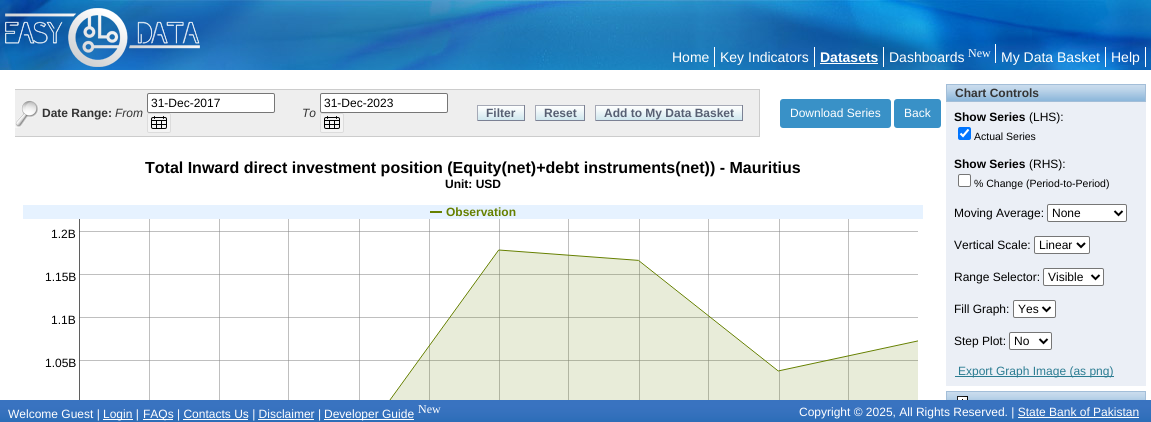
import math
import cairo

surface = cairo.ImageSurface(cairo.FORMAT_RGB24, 1151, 422)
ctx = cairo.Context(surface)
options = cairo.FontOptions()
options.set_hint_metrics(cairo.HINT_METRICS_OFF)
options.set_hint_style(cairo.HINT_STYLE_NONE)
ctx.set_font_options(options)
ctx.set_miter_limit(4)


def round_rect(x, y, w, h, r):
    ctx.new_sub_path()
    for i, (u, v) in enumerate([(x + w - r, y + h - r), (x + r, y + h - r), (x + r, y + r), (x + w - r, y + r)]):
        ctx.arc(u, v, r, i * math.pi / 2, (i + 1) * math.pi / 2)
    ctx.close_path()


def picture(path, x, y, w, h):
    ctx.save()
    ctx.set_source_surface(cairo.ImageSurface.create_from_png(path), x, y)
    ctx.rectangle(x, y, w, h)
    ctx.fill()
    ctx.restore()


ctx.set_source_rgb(1, 1, 1)
ctx.paint()
picture("img1.png", 0, 0, 1151, 70)
picture("img2.png", 5, 8, 195, 59)
ctx.select_font_face("Liberation Sans")
ctx.set_font_size(14)
ctx.set_source_rgb(1, 1, 1)
ctx.move_to(672, 62)
ctx.show_text("Home")
ctx.rectangle(714, 47, 1, 20)
ctx.fill()
ctx.move_to(720, 62)
ctx.show_text("Key Indicators")
ctx.rectangle(814, 47, 1, 20)
ctx.fill()
ctx.select_font_face("Liberation Sans", cairo.FONT_SLANT_NORMAL, cairo.FONT_WEIGHT_BOLD)
ctx.move_to(820, 62)
ctx.show_text("Datasets")
ctx.rectangle(883, 47, 1, 20)
ctx.fill()
ctx.rectangle(820, 63, 58, 1)
ctx.fill()
ctx.rectangle(995, 44, 1, 19)
ctx.fill()
ctx.select_font_face("Liberation Sans")
ctx.move_to(889, 62)
ctx.show_text("Dashboards")
ctx.select_font_face("Liberation Serif")
ctx.set_font_size(12)
ctx.move_to(968, 57)
ctx.show_text("New")
ctx.select_font_face("Liberation Sans")
ctx.set_font_size(14)
ctx.move_to(1001, 62)
ctx.show_text("My Data Basket")
ctx.rectangle(1105, 47, 1, 20)
ctx.fill()
ctx.move_to(1111, 62)
ctx.show_text("Help")
ctx.rectangle(1145, 47, 1, 20)
ctx.fill()
ctx.set_source_rgb(0.933, 0.933, 0.933)
ctx.rectangle(15, 90, 744, 46)
ctx.fill()
ctx.set_source_rgb(0.8, 0.8, 0.8)
ctx.rectangle(15, 89, 745, 1)
ctx.fill()
ctx.rectangle(15, 136, 734, 1)
ctx.fill()
picture("img3.png", 15, 100, 24, 28)
ctx.set_source_rgb(1, 1, 1)
round_rect(147.5, 93.5, 127, 19, 1.5)
ctx.fill_preserve()
ctx.set_source_rgb(0.463, 0.463, 0.463)
ctx.set_line_width(1)
ctx.stroke()
ctx.set_font_size(12)
ctx.set_source_rgb(0, 0, 0)
ctx.move_to(151, 107)
ctx.show_text("31-Dec-2017")
ctx.set_source_rgb(0.957, 0.957, 0.957)
round_rect(147.5, 113.5, 23, 19, 1.5)
ctx.fill_preserve()
ctx.set_source_rgb(0.863, 0.863, 0.863)
ctx.stroke()
picture("img4.png", 151, 116, 16, 13)
ctx.set_source_rgb(1, 1, 1)
round_rect(320.5, 93.5, 127, 19, 1.5)
ctx.fill_preserve()
ctx.set_source_rgb(0.463, 0.463, 0.463)
ctx.stroke()
ctx.set_source_rgb(0, 0, 0)
ctx.move_to(324, 107)
ctx.show_text("31-Dec-2023")
ctx.set_source_rgb(0.957, 0.957, 0.957)
round_rect(320.5, 113.5, 23, 19, 1.5)
ctx.fill_preserve()
ctx.set_source_rgb(0.863, 0.863, 0.863)
ctx.stroke()
picture("img4.png", 324, 116, 16, 13)
ctx.select_font_face("Liberation Sans", cairo.FONT_SLANT_NORMAL, cairo.FONT_WEIGHT_BOLD)
ctx.set_source_rgb(0.204, 0.204, 0.204)
ctx.move_to(42, 117)
ctx.show_text("Date Range:")
ctx.select_font_face("Liberation Sans", cairo.FONT_SLANT_ITALIC)
ctx.move_to(115, 117)
ctx.show_text("From")
ctx.move_to(302, 117)
ctx.show_text("To")
picture("img5.png", 478, 106, 46, 14)
ctx.set_source_rgb(0.647, 0.663, 0.714)
ctx.rectangle(477, 105, 48, 1)
ctx.fill()
ctx.set_source_rgb(0.482, 0.506, 0.58)
ctx.rectangle(524, 105, 1, 16)
ctx.fill()
ctx.rectangle(477, 120, 48, 1)
ctx.fill()
ctx.set_source_rgb(0.647, 0.663, 0.714)
ctx.rectangle(477, 105, 1, 16)
ctx.fill()
ctx.select_font_face("Liberation Sans", cairo.FONT_SLANT_NORMAL, cairo.FONT_WEIGHT_BOLD)
ctx.set_source_rgb(0.345, 0.376, 0.451)
ctx.move_to(486, 117)
ctx.show_text("Filter")
picture("img6.png", 536, 106, 48, 14)
ctx.set_source_rgb(0.647, 0.663, 0.714)
ctx.rectangle(535, 105, 50, 1)
ctx.fill()
ctx.set_source_rgb(0.482, 0.506, 0.58)
ctx.rectangle(584, 105, 1, 16)
ctx.fill()
ctx.rectangle(535, 120, 50, 1)
ctx.fill()
ctx.set_source_rgb(0.647, 0.663, 0.714)
ctx.rectangle(535, 105, 1, 16)
ctx.fill()
ctx.set_source_rgb(0.345, 0.376, 0.451)
ctx.move_to(544, 117)
ctx.show_text("Reset")
picture("img7.png", 596, 106, 146, 14)
ctx.set_source_rgb(0.647, 0.663, 0.714)
ctx.rectangle(595, 105, 148, 1)
ctx.fill()
ctx.set_source_rgb(0.482, 0.506, 0.58)
ctx.rectangle(742, 105, 1, 16)
ctx.fill()
ctx.rectangle(595, 120, 148, 1)
ctx.fill()
ctx.set_source_rgb(0.647, 0.663, 0.714)
ctx.rectangle(595, 105, 1, 16)
ctx.fill()
ctx.set_source_rgb(0.345, 0.376, 0.451)
ctx.move_to(604, 117)
ctx.show_text("Add to My Data Basket")
ctx.set_source_rgb(0.8, 0.8, 0.8)
ctx.rectangle(759, 89, 1, 48)
ctx.fill()
ctx.rectangle(749, 136, 11, 1)
ctx.fill()
ctx.set_source_rgb(0.224, 0.569, 0.78)
round_rect(780, 99, 111, 29, 3)
ctx.fill()
ctx.select_font_face("Liberation Sans")
ctx.set_source_rgb(1, 1, 1)
ctx.move_to(790, 117)
ctx.show_text("Download Series")
ctx.set_source_rgb(0.224, 0.569, 0.78)
round_rect(894, 99, 47, 29, 3)
ctx.fill()
ctx.set_source_rgb(1, 1, 1)
ctx.move_to(904, 117)
ctx.show_text("Back")
ctx.select_font_face("Liberation Sans", cairo.FONT_SLANT_NORMAL, cairo.FONT_WEIGHT_BOLD)
ctx.set_font_size(16)
ctx.set_source_rgb(0, 0, 0)
ctx.move_to(145, 173)
ctx.show_text("Total Inward direct investment position (Equity(net)+debt instruments(net)) - Mauritius")
ctx.set_font_size(12)
ctx.move_to(445, 188)
ctx.show_text("Unit: USD")
ctx.set_source_rgb(0.902, 0.949, 1)
ctx.rectangle(23, 205, 900, 14)
ctx.fill()
ctx.set_source_rgb(0.4, 0.502, 0)
ctx.rectangle(430, 211, 12, 2)
ctx.fill()
ctx.move_to(446, 216)
ctx.show_text("Observation")
ctx.select_font_face("Liberation Sans")
ctx.set_source_rgb(0, 0, 0)
ctx.move_to(51, 238)
ctx.show_text("1.2B")
picture("img8.png", 79, 219, 839, 181)
ctx.move_to(45, 281)
ctx.show_text("1.15B")
ctx.move_to(51, 324)
ctx.show_text("1.1B")
ctx.move_to(45, 367)
ctx.show_text("1.05B")
picture("img9.png", 947, 85, 198, 16)
ctx.rectangle(946.5, 84.5, 199, 17)
ctx.set_source_rgb(0.639, 0.745, 0.847)
ctx.stroke()
ctx.select_font_face("Liberation Sans", cairo.FONT_SLANT_NORMAL, cairo.FONT_WEIGHT_BOLD)
ctx.set_source_rgb(0.204, 0.204, 0.204)
ctx.move_to(955, 97)
ctx.show_text("Chart Controls")
ctx.set_source_rgb(0.918, 0.937, 0.961)
ctx.rectangle(946, 102, 200, 284)
ctx.fill()
ctx.set_source_rgb(0, 0, 0)
ctx.move_to(954, 121)
ctx.show_text("Show Series")
ctx.select_font_face("Liberation Sans")
ctx.move_to(1029, 121)
ctx.show_text("(LHS):")
ctx.set_source_rgb(0, 0.459, 1)
round_rect(958, 127, 13, 13, 2)
ctx.fill()
ctx.new_path()
ctx.move_to(960.5, 133.5)
ctx.line_to(963, 136)
ctx.line_to(968.5, 129.5)
ctx.set_source_rgb(1, 1, 1)
ctx.set_line_width(2.1)
ctx.stroke()
ctx.set_font_size(10.5)
ctx.set_source_rgb(0, 0, 0)
ctx.move_to(974, 140)
ctx.show_text("Actual Series")
ctx.select_font_face("Liberation Sans", cairo.FONT_SLANT_NORMAL, cairo.FONT_WEIGHT_BOLD)
ctx.set_font_size(12)
ctx.move_to(954, 168)
ctx.show_text("Show Series")
ctx.select_font_face("Liberation Sans")
ctx.move_to(1029, 168)
ctx.show_text("(RHS):")
ctx.set_source_rgb(1, 1, 1)
round_rect(958.5, 174.5, 12, 12, 1.5)
ctx.fill_preserve()
ctx.set_source_rgb(0.463, 0.463, 0.463)
ctx.set_line_width(1)
ctx.stroke()
ctx.set_font_size(10.5)
ctx.set_source_rgb(0, 0, 0)
ctx.move_to(974, 187)
ctx.show_text("% Change (Period-to-Period)")
ctx.set_font_size(12)
ctx.move_to(954, 217)
ctx.show_text("Moving Average:")
ctx.set_source_rgb(1, 1, 1)
round_rect(1047.5, 204.5, 79, 17, 1.5)
ctx.fill_preserve()
ctx.set_source_rgb(0.463, 0.463, 0.463)
ctx.stroke()
ctx.new_path()
ctx.move_to(1114.5, 211)
ctx.line_to(1118.5, 215)
ctx.line_to(1122.5, 211)
ctx.set_source_rgb(0, 0, 0)
ctx.set_line_width(2)
ctx.stroke()
ctx.move_to(1052, 217)
ctx.show_text("None")
ctx.move_to(954, 249)
ctx.show_text("Vertical Scale:")
ctx.set_source_rgb(1, 1, 1)
round_rect(1034.5, 236.5, 55, 17, 1.5)
ctx.fill_preserve()
ctx.set_source_rgb(0.463, 0.463, 0.463)
ctx.set_line_width(1)
ctx.stroke()
ctx.new_path()
ctx.move_to(1077, 243)
ctx.line_to(1081, 247)
ctx.line_to(1085, 243)
ctx.set_source_rgb(0, 0, 0)
ctx.set_line_width(2)
ctx.stroke()
ctx.move_to(1039, 249)
ctx.show_text("Linear")
ctx.move_to(954, 281)
ctx.show_text("Range Selector:")
ctx.set_source_rgb(1, 1, 1)
round_rect(1043.5, 268.5, 60, 17, 1.5)
ctx.fill_preserve()
ctx.set_source_rgb(0.463, 0.463, 0.463)
ctx.set_line_width(1)
ctx.stroke()
ctx.new_path()
ctx.move_to(1091.5, 275)
ctx.line_to(1095.5, 279)
ctx.line_to(1099.5, 275)
ctx.set_source_rgb(0, 0, 0)
ctx.set_line_width(2)
ctx.stroke()
ctx.move_to(1048, 281)
ctx.show_text("Visible")
ctx.move_to(954, 313)
ctx.show_text("Fill Graph:")
ctx.set_source_rgb(1, 1, 1)
round_rect(1013.5, 300.5, 42, 17, 1.5)
ctx.fill_preserve()
ctx.set_source_rgb(0.463, 0.463, 0.463)
ctx.set_line_width(1)
ctx.stroke()
ctx.new_path()
ctx.move_to(1042.5, 307)
ctx.line_to(1046.5, 311)
ctx.line_to(1050.5, 307)
ctx.set_source_rgb(0, 0, 0)
ctx.set_line_width(2)
ctx.stroke()
ctx.move_to(1018, 313)
ctx.show_text("Yes")
ctx.move_to(954, 345)
ctx.show_text("Step Plot:")
ctx.set_source_rgb(1, 1, 1)
round_rect(1009.5, 332.5, 42, 17, 1.5)
ctx.fill_preserve()
ctx.set_source_rgb(0.463, 0.463, 0.463)
ctx.set_line_width(1)
ctx.stroke()
ctx.new_path()
ctx.move_to(1039.5, 339)
ctx.line_to(1043.5, 343)
ctx.line_to(1047.5, 339)
ctx.set_source_rgb(0, 0, 0)
ctx.set_line_width(2)
ctx.stroke()
ctx.move_to(1014, 345)
ctx.show_text("No")
ctx.set_source_rgb(0.169, 0.486, 0.573)
ctx.rectangle(955, 376, 159, 1)
ctx.fill()
ctx.move_to(958, 375)
ctx.show_text("Export Graph Image (as png)")
picture("img10.png", 947, 392, 198, 8)
ctx.rectangle(946.5, 391.5, 199, 22)
ctx.set_source_rgb(0.639, 0.745, 0.847)
ctx.set_line_width(1)
ctx.stroke()
picture("img11.png", 957, 396, 11, 4)
picture("img12.png", 0, 400, 1151, 22)
ctx.set_source_rgb(1, 1, 1)
ctx.move_to(8, 418)
ctx.show_text("Welcome Guest |")
ctx.rectangle(103, 419, 30, 1)
ctx.fill()
ctx.move_to(103, 418)
ctx.show_text("Login |")
ctx.rectangle(143, 419, 30, 1)
ctx.fill()
ctx.move_to(143, 418)
ctx.show_text("FAQs | Contacts Us | Disclaimer |")
ctx.rectangle(324, 419, 90, 1)
ctx.fill()
ctx.move_to(324, 418)
ctx.show_text("Developer Guide")
ctx.select_font_face("Liberation Serif")
ctx.move_to(418, 413)
ctx.show_text("New")
ctx.rectangle(183, 419, 65, 1)
ctx.fill()
ctx.rectangle(258, 419, 56, 1)
ctx.fill()
ctx.select_font_face("Liberation Sans")
ctx.move_to(799, 416)
ctx.show_text("Copyright © 2025, All Rights Reserved. | State Bank of Pakistan")
ctx.rectangle(1018, 417, 121, 1)
ctx.fill()
surface.write_to_png("page.png")
